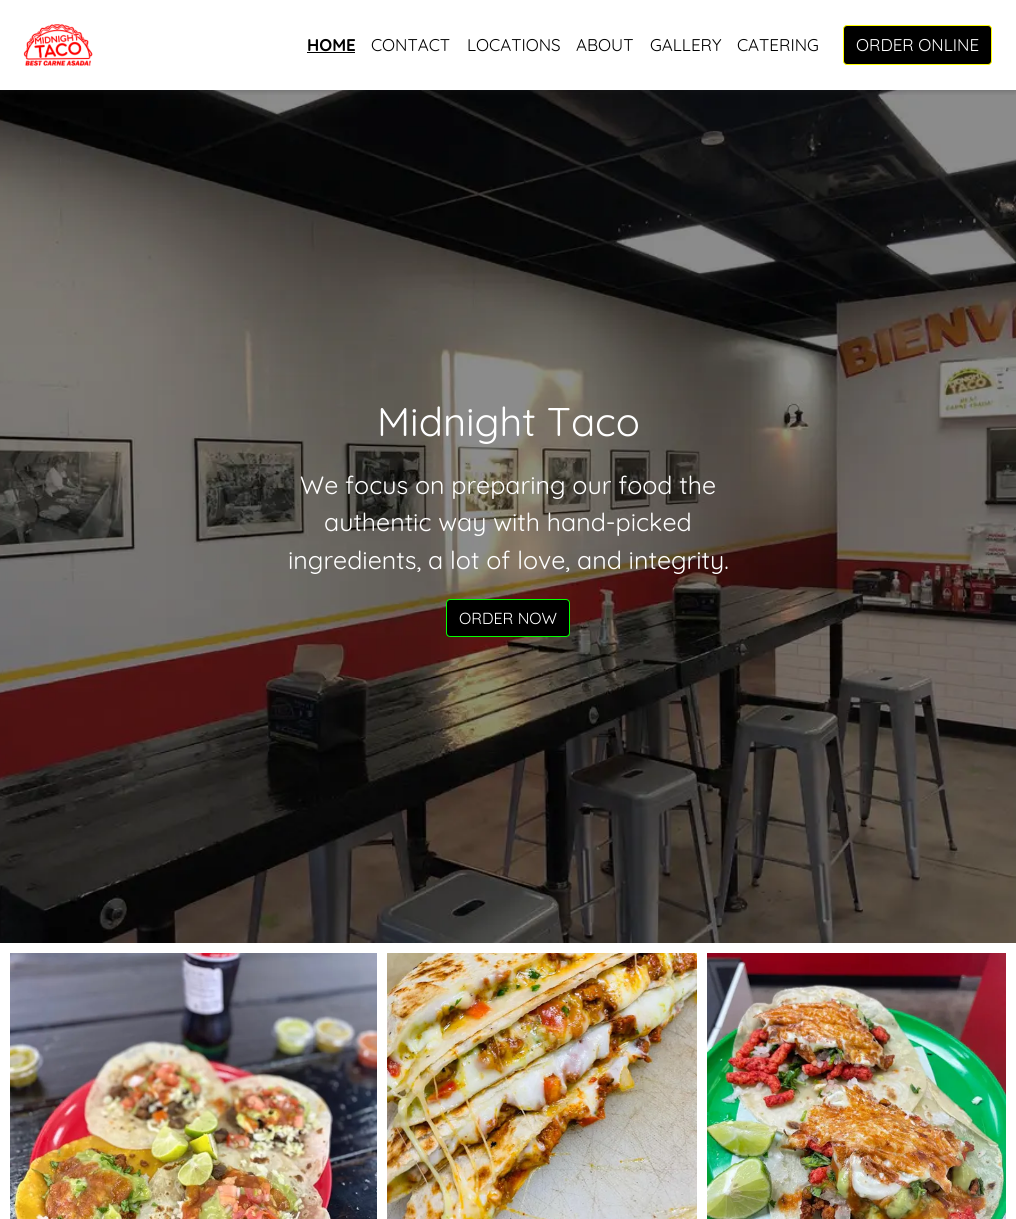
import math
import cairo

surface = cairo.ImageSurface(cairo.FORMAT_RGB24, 1016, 1219)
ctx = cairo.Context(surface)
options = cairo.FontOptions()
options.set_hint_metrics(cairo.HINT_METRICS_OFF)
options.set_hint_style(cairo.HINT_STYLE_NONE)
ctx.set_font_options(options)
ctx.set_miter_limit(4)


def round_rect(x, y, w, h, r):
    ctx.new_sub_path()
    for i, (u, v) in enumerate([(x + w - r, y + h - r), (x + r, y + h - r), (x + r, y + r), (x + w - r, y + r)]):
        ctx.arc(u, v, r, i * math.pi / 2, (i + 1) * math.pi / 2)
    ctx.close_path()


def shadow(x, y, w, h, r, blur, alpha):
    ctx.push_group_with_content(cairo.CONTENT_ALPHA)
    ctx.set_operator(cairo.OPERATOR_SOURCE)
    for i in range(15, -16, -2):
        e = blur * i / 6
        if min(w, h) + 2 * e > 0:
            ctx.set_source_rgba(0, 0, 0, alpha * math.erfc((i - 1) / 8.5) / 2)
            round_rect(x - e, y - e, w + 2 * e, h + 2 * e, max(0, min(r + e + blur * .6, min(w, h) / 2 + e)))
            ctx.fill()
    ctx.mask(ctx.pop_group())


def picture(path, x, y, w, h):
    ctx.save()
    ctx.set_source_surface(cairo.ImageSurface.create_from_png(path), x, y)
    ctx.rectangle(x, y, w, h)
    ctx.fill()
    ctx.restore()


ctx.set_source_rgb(1, 1, 1)
ctx.paint()
picture("img2.png", 0, 90, 1016, 853)
ctx.save()
ctx.rectangle(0, 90, 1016, 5)
ctx.clip()
ctx.set_source_rgb(0.125, 0.129, 0.141)
shadow(0, 1, 1016, 90, 0, 3, 0.28)
ctx.restore()
picture("img1.png", 23, 24, 70, 42)
ctx.select_font_face("Quicksand", cairo.FONT_SLANT_NORMAL, cairo.FONT_WEIGHT_BOLD)
ctx.set_font_size(17)
ctx.set_source_rgb(0, 0, 0)
ctx.move_to(307, 51)
ctx.show_text("HOME")
ctx.rectangle(307, 52, 48, 1)
ctx.fill()
ctx.select_font_face("Quicksand")
ctx.move_to(371, 51)
ctx.show_text("CONTACT")
ctx.move_to(467, 51)
ctx.show_text("LOCATIONS")
ctx.move_to(576, 51)
ctx.show_text("ABOUT")
ctx.move_to(650, 51)
ctx.show_text("GALLERY")
ctx.move_to(737, 51)
ctx.show_text("CATERING")
round_rect(843.5, 25.5, 148, 39, 3.5)
ctx.fill_preserve()
ctx.set_source_rgb(1, 0.992, 0.008)
ctx.set_line_width(1)
ctx.stroke()
ctx.set_source_rgb(1, 1, 1)
ctx.move_to(856, 51)
ctx.show_text("ORDER ONLINE")
ctx.set_font_size(40)
ctx.move_to(377, 436)
ctx.show_text("Midnight Taco")
ctx.set_font_size(25)
ctx.move_to(300, 494)
ctx.show_text("We focus on preparing our food the")
ctx.move_to(324, 531)
ctx.show_text("authentic way with hand-picked")
ctx.move_to(288, 569)
ctx.show_text("ingredients, a lot of love, and integrity.")
ctx.set_source_rgb(0, 0, 0)
round_rect(446.5, 599.5, 123, 37, 3.5)
ctx.fill_preserve()
ctx.set_source_rgb(0.012, 1, 0)
ctx.stroke()
ctx.set_font_size(16)
ctx.set_source_rgb(1, 1, 1)
ctx.move_to(459, 624)
ctx.show_text("ORDER NOW")
picture("img3.png", 10, 953, 367, 266)
picture("img4.png", 387, 953, 310, 266)
picture("img5.png", 707, 953, 299, 266)
surface.write_to_png("page.png")
